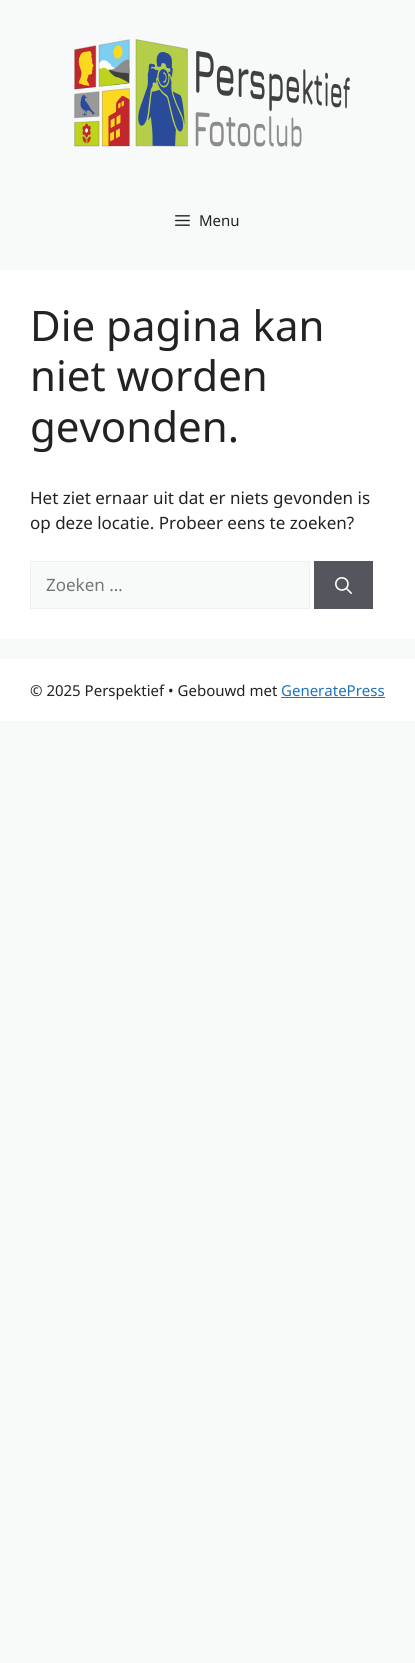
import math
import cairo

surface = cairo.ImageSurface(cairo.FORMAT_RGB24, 415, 1663)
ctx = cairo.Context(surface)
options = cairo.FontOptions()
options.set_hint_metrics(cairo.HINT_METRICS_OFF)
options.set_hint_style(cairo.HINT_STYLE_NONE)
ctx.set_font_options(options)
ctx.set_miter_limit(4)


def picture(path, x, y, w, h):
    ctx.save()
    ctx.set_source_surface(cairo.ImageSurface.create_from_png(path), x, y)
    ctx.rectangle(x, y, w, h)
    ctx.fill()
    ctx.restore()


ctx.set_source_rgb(0.969, 0.973, 0.976)
ctx.paint()
picture("img1.png", 74, 39, 276, 108)
picture("img2.png", 175, 215, 15, 11)
ctx.select_font_face("Noto Sans")
ctx.set_font_size(15)
ctx.set_source_rgb(0.133, 0.133, 0.133)
ctx.move_to(199, 226)
ctx.show_text("Menu")
ctx.set_source_rgb(1, 1, 1)
ctx.rectangle(0, 270, 415, 369)
ctx.fill()
ctx.set_font_size(42)
ctx.set_source_rgb(0.133, 0.133, 0.133)
ctx.move_to(30, 341)
ctx.show_text("Die pagina kan")
ctx.move_to(30, 391)
ctx.show_text("niet worden")
ctx.move_to(30, 442)
ctx.show_text("gevonden.")
ctx.set_font_size(17)
ctx.move_to(30, 504)
ctx.show_text("Het ziet ernaar uit dat er niets gevonden is")
ctx.move_to(30, 529)
ctx.show_text("op deze locatie. Probeer eens te zoeken?")
ctx.set_source_rgb(0.969, 0.973, 0.976)
ctx.rectangle(30.5, 561.5, 279, 47)
ctx.fill_preserve()
ctx.set_source_rgb(0.941, 0.941, 0.941)
ctx.set_line_width(1)
ctx.stroke()
ctx.set_source_rgb(0.459, 0.459, 0.459)
ctx.move_to(46, 591)
ctx.show_text("Zoeken …")
ctx.set_source_rgb(0.333, 0.333, 0.369)
ctx.rectangle(314, 561, 59, 48)
ctx.fill()
picture("img3.png", 335, 577, 17, 17)
ctx.set_source_rgb(1, 1, 1)
ctx.rectangle(0, 659, 415, 62)
ctx.fill()
ctx.set_font_size(15)
ctx.set_source_rgb(0.133, 0.133, 0.133)
ctx.move_to(30, 696)
ctx.show_text("© 2025 Perspektief • Gebouwd met")
ctx.set_source_rgb(0.118, 0.451, 0.745)
ctx.move_to(281, 696)
ctx.show_text("GeneratePress")
ctx.rectangle(281, 697, 104, 1)
ctx.fill()
surface.write_to_png("page.png")
